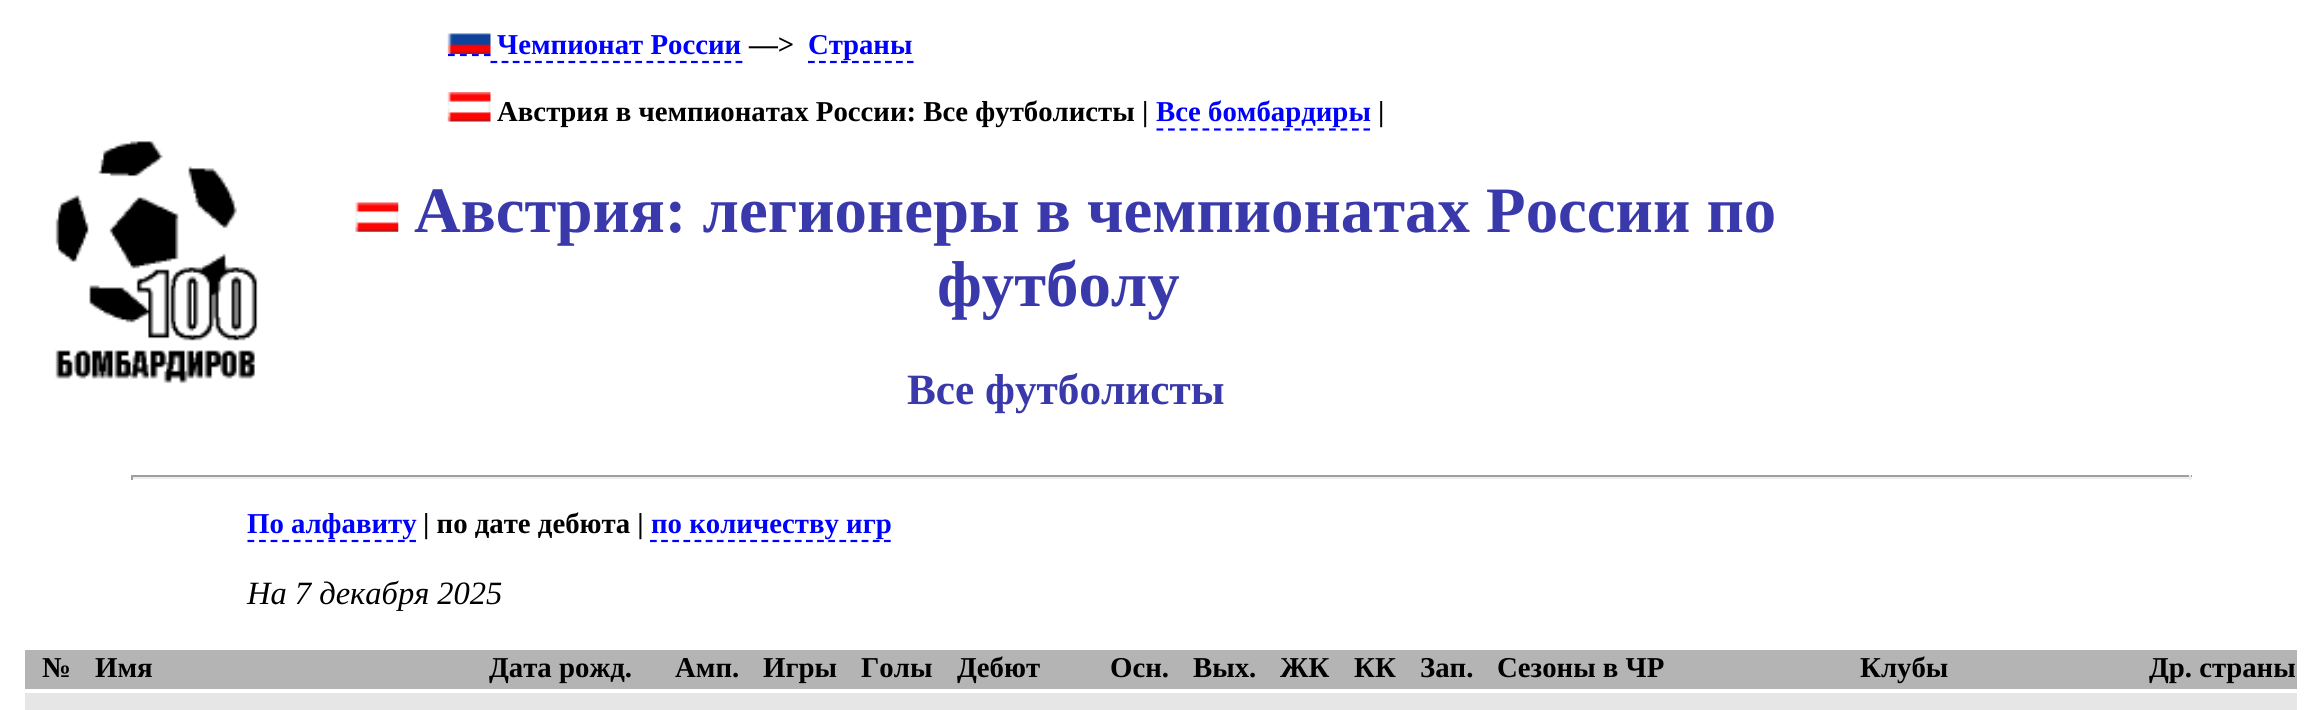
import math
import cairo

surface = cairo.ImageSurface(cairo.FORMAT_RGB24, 2321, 710)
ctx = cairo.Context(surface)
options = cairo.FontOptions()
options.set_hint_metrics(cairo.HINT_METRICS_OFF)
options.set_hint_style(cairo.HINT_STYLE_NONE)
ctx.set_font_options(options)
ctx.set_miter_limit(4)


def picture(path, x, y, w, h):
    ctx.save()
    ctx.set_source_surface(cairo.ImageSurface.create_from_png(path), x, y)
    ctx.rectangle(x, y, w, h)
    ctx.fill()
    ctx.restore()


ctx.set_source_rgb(1, 1, 1)
ctx.paint()
picture("img1.png", 55, 141, 203, 243)
ctx.new_path()
ctx.move_to(448, 55)
ctx.line_to(490.5, 55)
ctx.set_source_rgb(0, 0, 1)
ctx.set_line_width(2.2)
ctx.set_dash([6.75, 5.24])
ctx.stroke()
picture("img2.png", 447, 33, 44, 21)
ctx.select_font_face("Liberation Serif", cairo.FONT_SLANT_NORMAL, cairo.FONT_WEIGHT_BOLD)
ctx.set_font_size(28.8)
ctx.move_to(497, 54)
ctx.show_text("Чемпионат России")
ctx.new_path()
ctx.move_to(490.5, 62)
ctx.line_to(742.5, 62)
ctx.set_dash([6.75, 4.39])
ctx.stroke()
ctx.set_source_rgb(0, 0, 0)
ctx.move_to(749, 54)
ctx.show_text("—>")
ctx.new_path()
ctx.move_to(808, 62)
ctx.line_to(913.5, 62)
ctx.set_source_rgb(0, 0, 1)
ctx.set_dash([6.75, 4.25])
ctx.stroke()
ctx.move_to(808, 54)
ctx.show_text("Страны")
picture("img3.png", 447, 92, 44, 30)
ctx.set_source_rgb(0, 0, 0)
ctx.move_to(497, 121)
ctx.show_text("Австрия в чемпионатах России: Все футболисты |")
ctx.set_source_rgb(0, 0, 1)
ctx.move_to(1156, 121)
ctx.show_text("Все бомбардиры")
ctx.new_path()
ctx.move_to(1156.5, 129.5)
ctx.line_to(1370, 129.5)
ctx.set_dash([6.75, 4.75])
ctx.stroke()
ctx.set_source_rgb(0, 0, 0)
ctx.move_to(1378, 121)
ctx.show_text("|")
picture("img4.png", 355, 202, 44, 30)
ctx.set_font_size(64.8)
ctx.set_source_rgb(0.224, 0.224, 0.675)
ctx.move_to(414, 232)
ctx.show_text("Австрия: легионеры в чемпионатах России по")
ctx.move_to(937, 306)
ctx.show_text("футболу")
ctx.set_font_size(43.25)
ctx.move_to(907, 404)
ctx.show_text("Все футболисты")
ctx.set_source_rgb(0.624, 0.624, 0.624)
ctx.rectangle(131, 475, 2061, 2)
ctx.fill()
ctx.set_source_rgb(0.933, 0.933, 0.933)
ctx.rectangle(2189, 475, 2, 5)
ctx.fill()
ctx.rectangle(131, 477, 2061, 2)
ctx.fill()
ctx.set_source_rgb(0.624, 0.624, 0.624)
ctx.rectangle(131, 475, 2, 5)
ctx.fill()
ctx.new_path()
ctx.move_to(247.5, 541)
ctx.line_to(416, 541)
ctx.set_source_rgb(0, 0, 1)
ctx.set_dash([6.75, 4.82])
ctx.stroke()
ctx.set_font_size(28.8)
ctx.move_to(247, 533)
ctx.show_text("По алфавиту")
ctx.set_source_rgb(0, 0, 0)
ctx.move_to(423, 533)
ctx.show_text("| по дате дебюта |")
ctx.new_path()
ctx.move_to(650, 541)
ctx.line_to(891, 541)
ctx.set_source_rgb(0, 0, 1)
ctx.set_dash([6.75, 4.39])
ctx.stroke()
ctx.move_to(651, 533)
ctx.show_text("по количеству игр")
ctx.select_font_face("Liberation Serif", cairo.FONT_SLANT_ITALIC)
ctx.set_font_size(32.5)
ctx.set_source_rgb(0, 0, 0)
ctx.move_to(247, 604)
ctx.show_text("На 7 декабря 2025")
ctx.set_source_rgb(0.706, 0.706, 0.706)
ctx.rectangle(25, 650, 2272, 39)
ctx.fill()
ctx.select_font_face("Liberation Serif", cairo.FONT_SLANT_NORMAL, cairo.FONT_WEIGHT_BOLD)
ctx.set_font_size(28.8)
ctx.set_source_rgb(0, 0, 0)
ctx.move_to(42, 677)
ctx.show_text("№")
ctx.move_to(95, 677)
ctx.show_text("Имя")
ctx.move_to(489, 677)
ctx.show_text("Дата рожд.")
ctx.move_to(675, 677)
ctx.show_text("Амп.")
ctx.move_to(763, 677)
ctx.show_text("Игры")
ctx.move_to(861, 677)
ctx.show_text("Голы")
ctx.move_to(957, 677)
ctx.show_text("Дебют")
ctx.move_to(1110, 677)
ctx.show_text("Осн.")
ctx.move_to(1193, 677)
ctx.show_text("Вых.")
ctx.move_to(1280, 677)
ctx.show_text("ЖК")
ctx.move_to(1354, 677)
ctx.show_text("КК")
ctx.move_to(1420, 677)
ctx.show_text("Зап.")
ctx.move_to(1497, 677)
ctx.show_text("Сезоны в ЧР")
ctx.move_to(1860, 677)
ctx.show_text("Клубы")
ctx.move_to(2149, 677)
ctx.show_text("Др. страны")
ctx.set_source_rgb(0.902, 0.902, 0.902)
ctx.rectangle(25, 693, 2272, 17)
ctx.fill()
surface.write_to_png("page.png")
